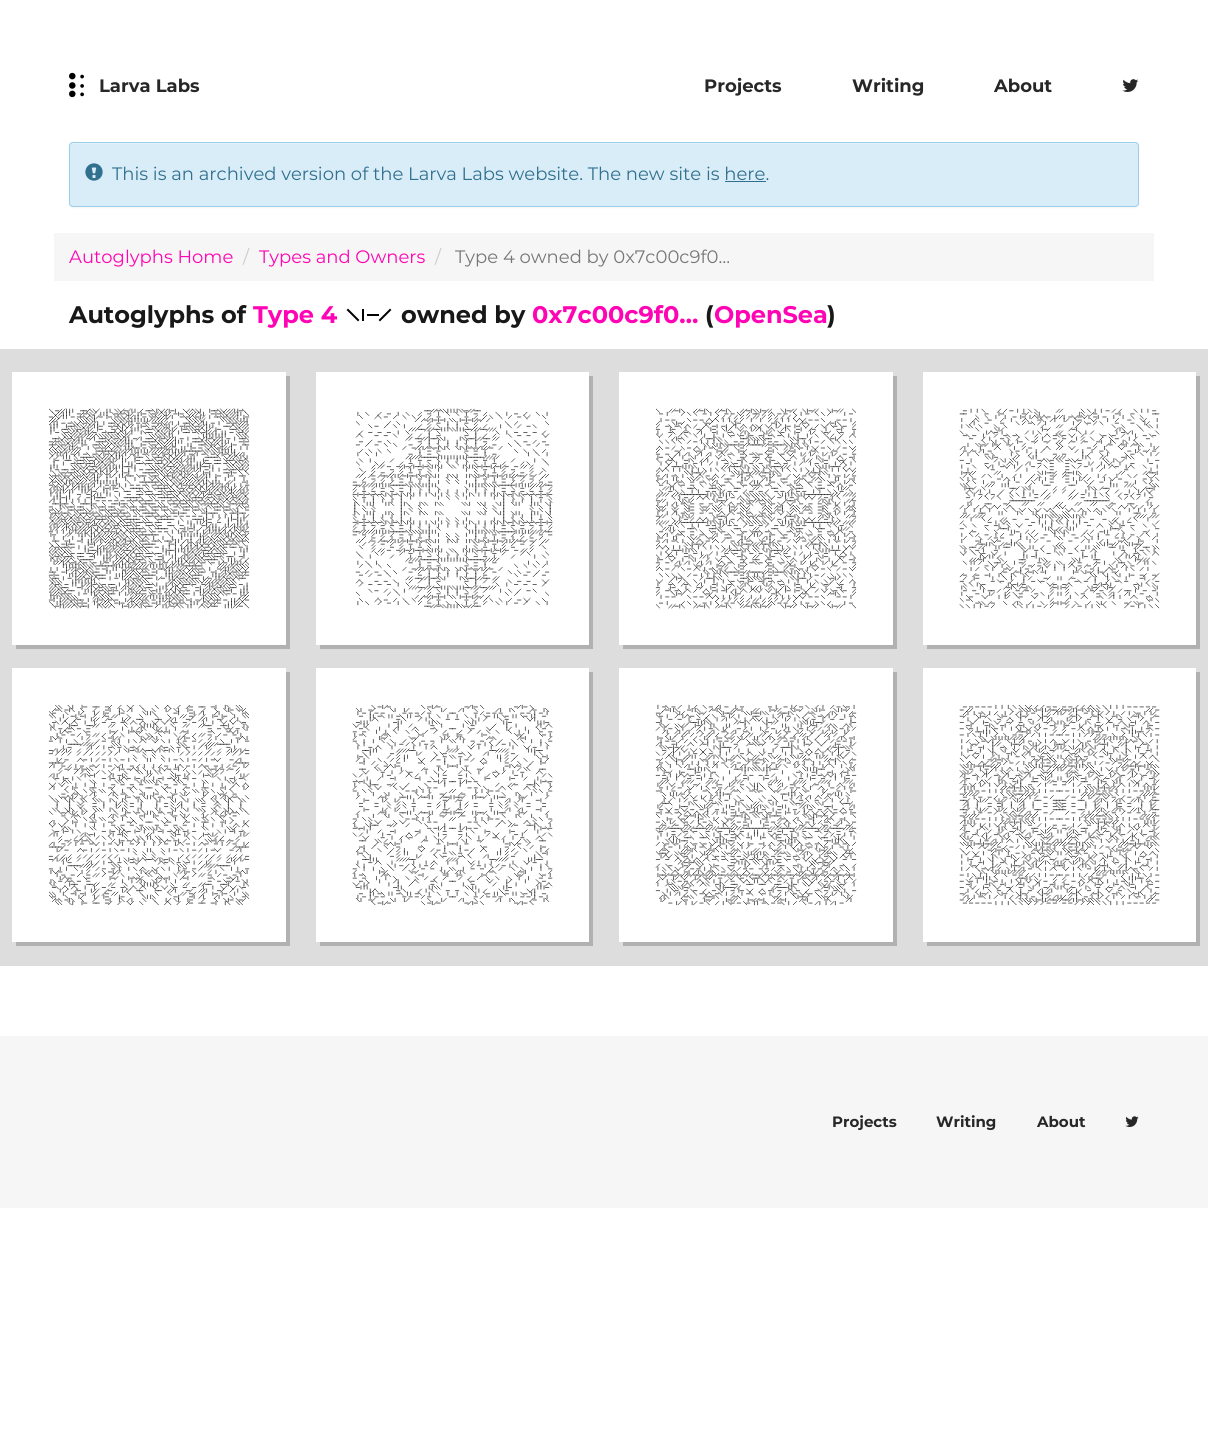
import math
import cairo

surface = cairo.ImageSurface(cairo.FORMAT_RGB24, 1208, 1454)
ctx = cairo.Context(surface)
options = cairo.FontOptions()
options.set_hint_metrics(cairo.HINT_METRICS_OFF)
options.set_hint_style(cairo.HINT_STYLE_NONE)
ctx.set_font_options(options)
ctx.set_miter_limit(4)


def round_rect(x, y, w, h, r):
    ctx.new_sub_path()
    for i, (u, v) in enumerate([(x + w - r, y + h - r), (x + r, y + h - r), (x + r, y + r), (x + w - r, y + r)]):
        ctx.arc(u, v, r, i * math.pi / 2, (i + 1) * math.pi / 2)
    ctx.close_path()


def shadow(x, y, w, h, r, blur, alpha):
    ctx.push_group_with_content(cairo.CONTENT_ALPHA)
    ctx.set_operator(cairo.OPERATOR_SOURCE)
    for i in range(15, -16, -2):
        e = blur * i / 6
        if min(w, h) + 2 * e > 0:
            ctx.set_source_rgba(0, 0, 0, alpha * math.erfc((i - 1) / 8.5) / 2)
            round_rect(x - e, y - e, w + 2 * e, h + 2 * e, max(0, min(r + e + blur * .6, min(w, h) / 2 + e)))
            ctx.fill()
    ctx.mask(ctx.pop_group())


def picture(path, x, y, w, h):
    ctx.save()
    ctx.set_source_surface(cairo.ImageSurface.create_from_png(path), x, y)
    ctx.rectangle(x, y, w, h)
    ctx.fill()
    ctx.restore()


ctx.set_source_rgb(1, 1, 1)
ctx.paint()
picture("img1.png", 69, 72, 15, 26)
ctx.select_font_face("Montserrat", cairo.FONT_SLANT_NORMAL, cairo.FONT_WEIGHT_BOLD)
ctx.set_font_size(18)
ctx.set_source_rgb(0.153, 0.153, 0.153)
ctx.move_to(99, 92)
ctx.show_text("Larva Labs")
ctx.move_to(704, 92)
ctx.show_text("Projects")
ctx.move_to(852, 92)
ctx.show_text("Writing")
ctx.move_to(994, 92)
ctx.show_text("About")
picture("img2.png", 1122, 79, 17, 13)
ctx.set_source_rgb(0, 0, 0)
shadow(69, 143, 1070, 65, 4, 1, 0.05)
ctx.set_source_rgb(0.851, 0.929, 0.969)
round_rect(69, 142, 1070, 65, 4)
ctx.fill()
ctx.set_source_rgb(0.89, 0.949, 0.976)
ctx.new_path()
ctx.move_to(73, 144)
ctx.line_to(1135, 144)
ctx.curve_to(1137, 144, 1138, 145, 1138, 147)
ctx.curve_to(1138, 145, 1137, 143, 1135, 143)
ctx.line_to(73, 143)
ctx.curve_to(71, 143, 70, 145, 70, 147)
ctx.curve_to(70, 145, 71, 144, 73, 144)
ctx.close_path()
ctx.fill()
round_rect(69.5, 142.5, 1069, 64, 3.5)
ctx.set_source_rgb(0.604, 0.812, 0.918)
ctx.set_line_width(1)
ctx.stroke()
picture("img3.png", 85, 163, 18, 18)
ctx.select_font_face("Montserrat")
ctx.set_source_rgb(0.192, 0.439, 0.561)
ctx.move_to(112, 180)
ctx.show_text("This is an archived version of the Larva Labs website. The new site is here.")
ctx.rectangle(725, 181, 41, 1)
ctx.fill()
ctx.set_source_rgb(0.961, 0.961, 0.961)
ctx.rectangle(54, 233, 1100, 48)
ctx.fill()
ctx.set_source_rgb(1, 0.016, 0.706)
ctx.move_to(69, 263)
ctx.show_text("Autoglyphs Home")
ctx.set_source_rgb(0.8, 0.8, 0.8)
ctx.move_to(243, 263)
ctx.show_text("/")
ctx.set_source_rgb(1, 0.016, 0.706)
ctx.move_to(259, 263)
ctx.show_text("Types and Owners")
ctx.set_source_rgb(0.8, 0.8, 0.8)
ctx.move_to(435, 263)
ctx.show_text("/")
ctx.set_source_rgb(0.467, 0.467, 0.467)
ctx.move_to(455, 263)
ctx.show_text("Type 4 owned by 0x7c00c9f0…")
ctx.select_font_face("Montserrat", cairo.FONT_SLANT_NORMAL, cairo.FONT_WEIGHT_BOLD)
ctx.set_font_size(24)
ctx.set_source_rgb(0.094, 0.094, 0.094)
ctx.move_to(69, 323)
ctx.show_text("Autoglyphs of")
ctx.set_source_rgb(1, 0.016, 0.706)
ctx.move_to(253, 323)
ctx.show_text("Type 4")
ctx.new_path()
ctx.move_to(348, 310)
ctx.line_to(358, 320)
ctx.set_source_rgb(0.004, 0.004, 0.004)
ctx.set_line_width(2)
ctx.set_line_cap(cairo.LINE_CAP_SQUARE)
ctx.stroke()
ctx.rectangle(362, 309, 2, 12)
ctx.fill()
ctx.rectangle(367, 314, 12, 2)
ctx.fill()
ctx.new_path()
ctx.move_to(390, 310)
ctx.line_to(380, 320)
ctx.stroke()
ctx.set_source_rgb(0.094, 0.094, 0.094)
ctx.move_to(401, 323)
ctx.show_text("owned by")
ctx.set_source_rgb(1, 0.016, 0.706)
ctx.move_to(532, 323)
ctx.show_text("0x7c00c9f0…")
ctx.set_source_rgb(0.094, 0.094, 0.094)
ctx.move_to(705, 323)
ctx.show_text("(")
ctx.set_source_rgb(1, 0.016, 0.706)
ctx.move_to(714, 323)
ctx.show_text("OpenSea")
ctx.set_source_rgb(0.094, 0.094, 0.094)
ctx.move_to(827, 323)
ctx.show_text(")")
ctx.set_source_rgb(0.867, 0.867, 0.867)
ctx.rectangle(0, 349, 1208, 617)
ctx.fill()
ctx.set_source_rgb(0.694, 0.694, 0.694)
ctx.new_path()
ctx.move_to(16, 645)
ctx.line_to(16, 649)
ctx.line_to(290, 649)
ctx.line_to(290, 376)
ctx.line_to(286, 376)
ctx.line_to(286, 645)
ctx.close_path()
ctx.fill()
ctx.set_source_rgb(1, 1, 1)
ctx.rectangle(12, 372, 274, 273)
ctx.fill()
picture("img4.png", 48, 408, 202, 201)
ctx.set_source_rgb(0.694, 0.694, 0.694)
ctx.new_path()
ctx.move_to(320, 645)
ctx.line_to(320, 649)
ctx.line_to(593, 649)
ctx.line_to(593, 376)
ctx.line_to(589, 376)
ctx.line_to(589, 645)
ctx.close_path()
ctx.fill()
ctx.set_source_rgb(1, 1, 1)
ctx.rectangle(316, 372, 273, 273)
ctx.fill()
picture("img5.png", 352, 408, 201, 201)
ctx.set_source_rgb(0.694, 0.694, 0.694)
ctx.new_path()
ctx.move_to(623, 645)
ctx.line_to(623, 649)
ctx.line_to(897, 649)
ctx.line_to(897, 376)
ctx.line_to(893, 376)
ctx.line_to(893, 645)
ctx.close_path()
ctx.fill()
ctx.set_source_rgb(1, 1, 1)
ctx.rectangle(619, 372, 274, 273)
ctx.fill()
picture("img6.png", 655, 408, 202, 201)
ctx.set_source_rgb(0.694, 0.694, 0.694)
ctx.new_path()
ctx.move_to(927, 645)
ctx.line_to(927, 649)
ctx.line_to(1200, 649)
ctx.line_to(1200, 376)
ctx.line_to(1196, 376)
ctx.line_to(1196, 645)
ctx.close_path()
ctx.fill()
ctx.set_source_rgb(1, 1, 1)
ctx.rectangle(923, 372, 273, 273)
ctx.fill()
picture("img7.png", 959, 408, 201, 201)
ctx.set_source_rgb(0.694, 0.694, 0.694)
ctx.new_path()
ctx.move_to(16, 942)
ctx.line_to(16, 946)
ctx.line_to(290, 946)
ctx.line_to(290, 672)
ctx.line_to(286, 672)
ctx.line_to(286, 942)
ctx.close_path()
ctx.fill()
ctx.set_source_rgb(1, 1, 1)
ctx.rectangle(12, 668, 274, 274)
ctx.fill()
picture("img8.png", 48, 704, 202, 202)
ctx.set_source_rgb(0.694, 0.694, 0.694)
ctx.new_path()
ctx.move_to(320, 942)
ctx.line_to(320, 946)
ctx.line_to(593, 946)
ctx.line_to(593, 672)
ctx.line_to(589, 672)
ctx.line_to(589, 942)
ctx.close_path()
ctx.fill()
ctx.set_source_rgb(1, 1, 1)
ctx.rectangle(316, 668, 273, 274)
ctx.fill()
picture("img9.png", 352, 704, 201, 202)
ctx.set_source_rgb(0.694, 0.694, 0.694)
ctx.new_path()
ctx.move_to(623, 942)
ctx.line_to(623, 946)
ctx.line_to(897, 946)
ctx.line_to(897, 672)
ctx.line_to(893, 672)
ctx.line_to(893, 942)
ctx.close_path()
ctx.fill()
ctx.set_source_rgb(1, 1, 1)
ctx.rectangle(619, 668, 274, 274)
ctx.fill()
picture("img10.png", 655, 704, 202, 202)
ctx.set_source_rgb(0.694, 0.694, 0.694)
ctx.new_path()
ctx.move_to(927, 942)
ctx.line_to(927, 946)
ctx.line_to(1200, 946)
ctx.line_to(1200, 672)
ctx.line_to(1196, 672)
ctx.line_to(1196, 942)
ctx.close_path()
ctx.fill()
ctx.set_source_rgb(1, 1, 1)
ctx.rectangle(923, 668, 273, 274)
ctx.fill()
picture("img11.png", 959, 704, 201, 202)
ctx.set_source_rgb(0.961, 0.961, 0.961)
ctx.rectangle(0, 1036, 1208, 172)
ctx.fill()
ctx.set_font_size(15)
ctx.set_source_rgb(0.153, 0.153, 0.153)
ctx.move_to(832, 1127)
ctx.show_text("Projects")
ctx.move_to(936, 1127)
ctx.show_text("Writing")
ctx.move_to(1037, 1127)
ctx.show_text("About")
picture("img12.png", 1125, 1116, 14, 11)
surface.write_to_png("page.png")
